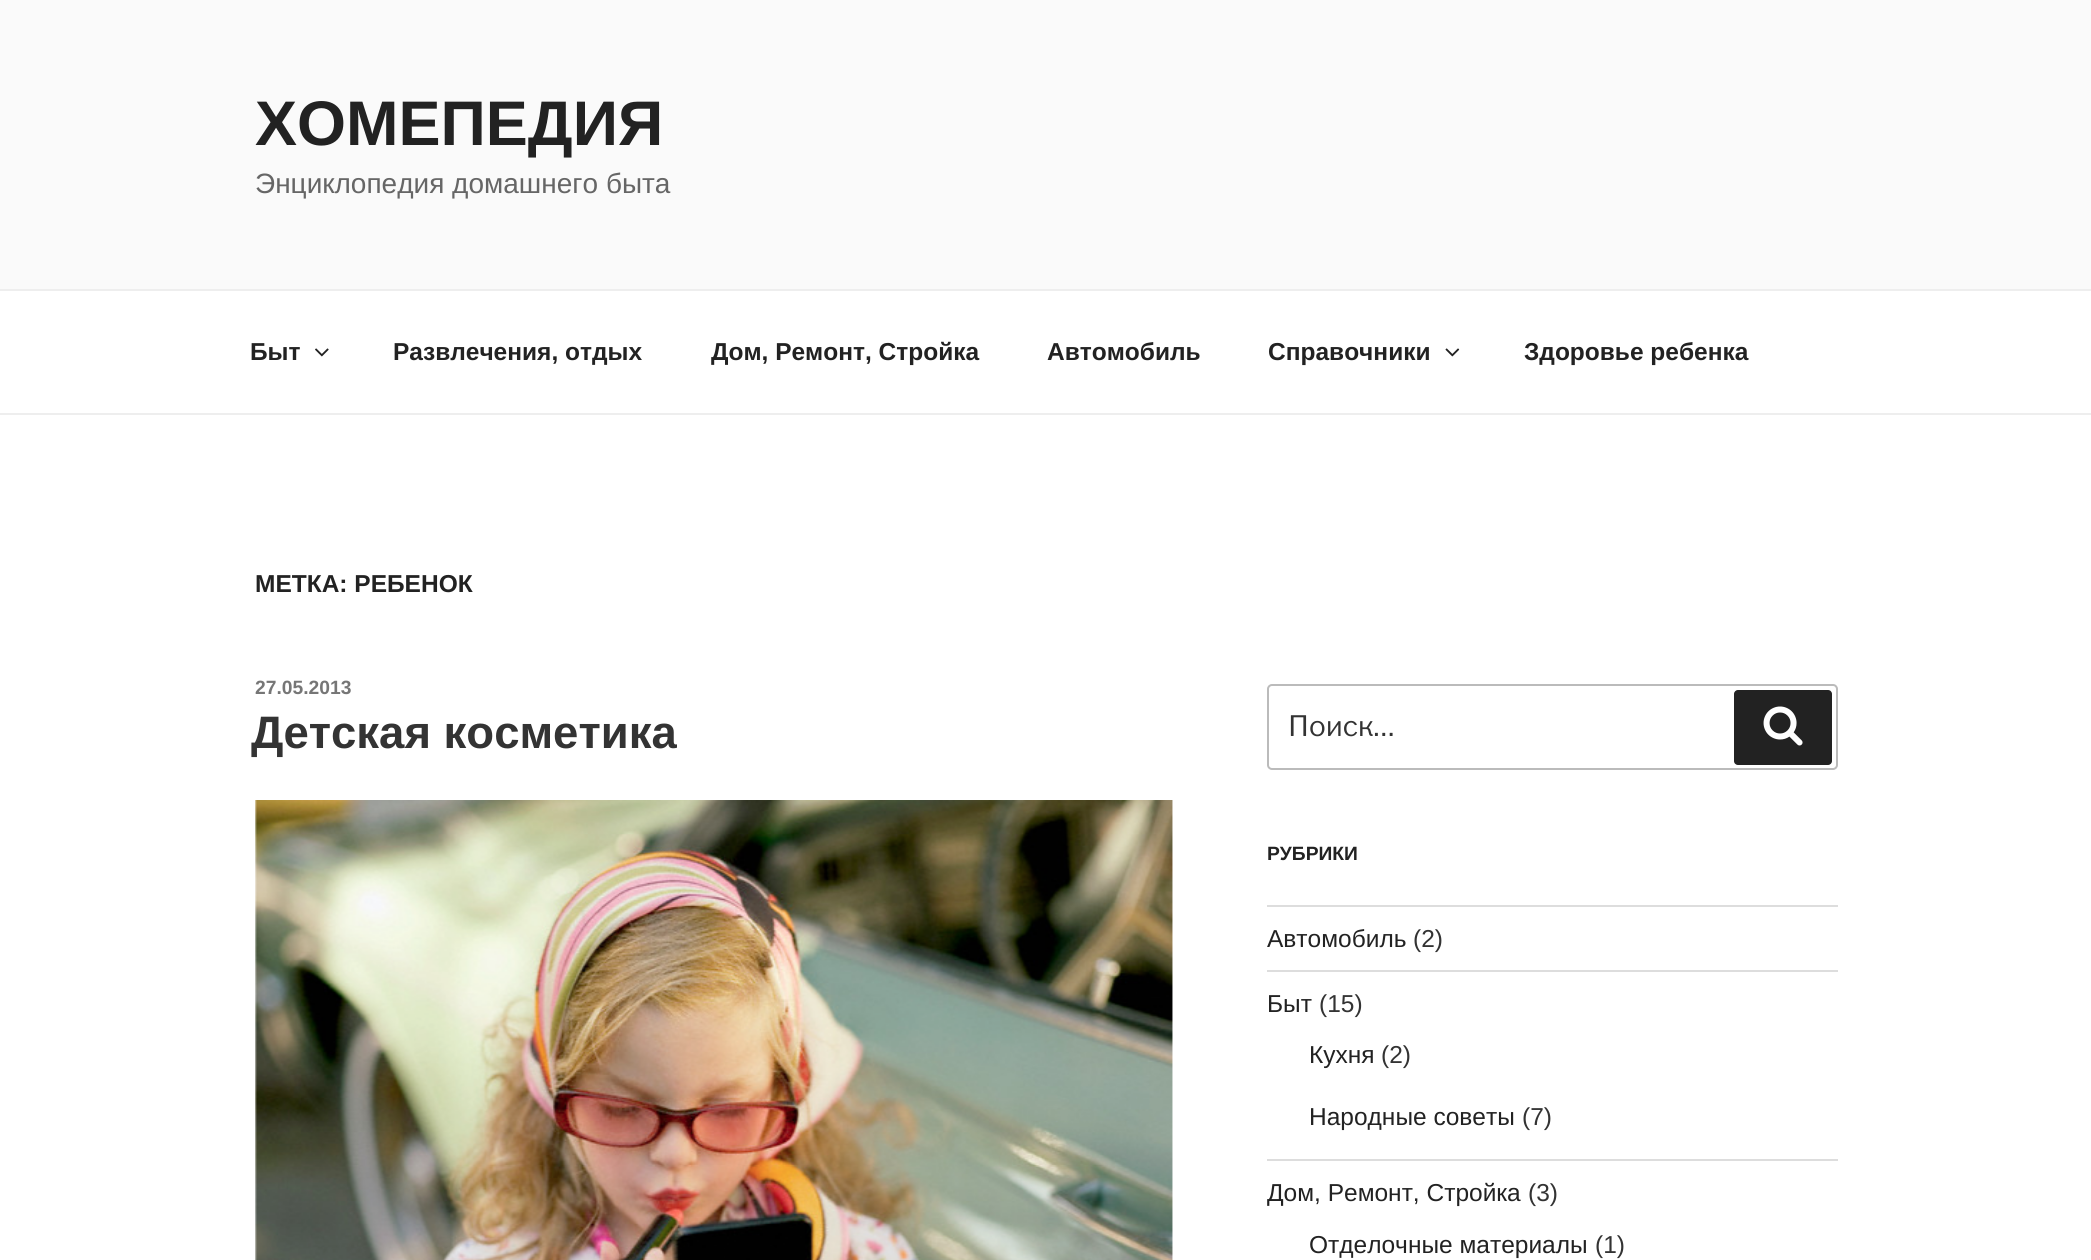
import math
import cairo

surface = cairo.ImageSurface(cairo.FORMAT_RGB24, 2091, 1260)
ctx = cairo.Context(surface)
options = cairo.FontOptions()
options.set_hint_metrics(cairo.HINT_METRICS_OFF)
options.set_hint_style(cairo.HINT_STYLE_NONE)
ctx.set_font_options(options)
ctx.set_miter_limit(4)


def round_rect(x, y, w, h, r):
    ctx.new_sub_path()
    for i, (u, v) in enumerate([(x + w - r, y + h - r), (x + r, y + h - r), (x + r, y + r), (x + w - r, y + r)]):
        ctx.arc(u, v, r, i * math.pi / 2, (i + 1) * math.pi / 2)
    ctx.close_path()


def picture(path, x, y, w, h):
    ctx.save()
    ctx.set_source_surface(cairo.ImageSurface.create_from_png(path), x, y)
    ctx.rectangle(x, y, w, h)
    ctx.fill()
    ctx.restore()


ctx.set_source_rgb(1, 1, 1)
ctx.paint()
ctx.set_source_rgb(0.98, 0.98, 0.98)
ctx.rectangle(0, 0, 2091, 289)
ctx.fill()
ctx.select_font_face("Liberation Sans", cairo.FONT_SLANT_NORMAL, cairo.FONT_WEIGHT_BOLD)
ctx.set_font_size(63)
ctx.set_source_rgb(0.133, 0.133, 0.133)
ctx.move_to(255, 145)
ctx.show_text("ХОМЕПЕДИЯ")
ctx.select_font_face("Liberation Sans")
ctx.set_font_size(28)
ctx.set_source_rgb(0.4, 0.4, 0.4)
ctx.move_to(255, 193)
ctx.show_text("Энциклопедия домашнего быта")
ctx.set_source_rgb(0.933, 0.933, 0.933)
ctx.rectangle(0, 289, 2091, 2)
ctx.fill()
ctx.rectangle(0, 413, 2091, 2)
ctx.fill()
ctx.select_font_face("Liberation Sans", cairo.FONT_SLANT_NORMAL, cairo.FONT_WEIGHT_BOLD)
ctx.set_font_size(24.5)
ctx.set_source_rgb(0.133, 0.133, 0.133)
ctx.move_to(250, 360)
ctx.show_text("Быт")
picture("img1.png", 315, 348, 14, 9)
ctx.move_to(393, 360)
ctx.show_text("Развлечения, отдых")
ctx.move_to(711, 360)
ctx.show_text("Дом, Ремонт, Стройка")
ctx.move_to(1047, 360)
ctx.show_text("Автомобиль")
ctx.move_to(1268, 360)
ctx.show_text("Справочники")
picture("img2.png", 1445, 348, 15, 9)
ctx.move_to(1524, 360)
ctx.show_text("Здоровье ребенка")
ctx.move_to(255, 592)
ctx.show_text("МЕТКА: РЕБЕНОК")
ctx.set_font_size(19.25)
ctx.set_source_rgb(0.463, 0.463, 0.463)
ctx.move_to(255, 694)
ctx.show_text("27.05.2013")
ctx.set_font_size(45.5)
ctx.set_source_rgb(0.2, 0.2, 0.2)
ctx.move_to(251, 748)
ctx.show_text("Детская косметика")
picture("img3.png", 255, 800, 918, 460)
round_rect(1268, 685, 569, 84, 4)
ctx.set_source_rgb(0.733, 0.733, 0.733)
ctx.stroke()
ctx.select_font_face("Libre Franklin")
ctx.set_font_size(28)
ctx.set_source_rgb(0.2, 0.2, 0.2)
ctx.move_to(1288, 736)
ctx.show_text("Поиск…")
ctx.set_source_rgb(0.133, 0.133, 0.133)
round_rect(1734, 690, 98, 75, 4)
ctx.fill()
picture("img4.png", 1763, 706, 40, 40)
ctx.select_font_face("Liberation Sans", cairo.FONT_SLANT_NORMAL, cairo.FONT_WEIGHT_BOLD)
ctx.set_font_size(19.25)
ctx.move_to(1267, 860)
ctx.show_text("РУБРИКИ")
ctx.set_source_rgb(0.867, 0.867, 0.867)
ctx.rectangle(1267, 905, 571, 2)
ctx.fill()
ctx.rectangle(1267, 970, 571, 2)
ctx.fill()
ctx.select_font_face("Liberation Sans")
ctx.set_font_size(24.5)
ctx.set_source_rgb(0.133, 0.133, 0.133)
ctx.move_to(1267, 947)
ctx.show_text("Автомобиль")
ctx.set_source_rgb(0.2, 0.2, 0.2)
ctx.move_to(1413, 947)
ctx.show_text("(2)")
ctx.set_source_rgb(0.867, 0.867, 0.867)
ctx.rectangle(1267, 1159, 571, 2)
ctx.fill()
ctx.set_source_rgb(0.133, 0.133, 0.133)
ctx.move_to(1267, 1012)
ctx.show_text("Быт")
ctx.set_source_rgb(0.2, 0.2, 0.2)
ctx.move_to(1319, 1012)
ctx.show_text("(15)")
ctx.set_source_rgb(0.133, 0.133, 0.133)
ctx.move_to(1309, 1063)
ctx.show_text("Кухня")
ctx.set_source_rgb(0.2, 0.2, 0.2)
ctx.move_to(1381, 1063)
ctx.show_text("(2)")
ctx.set_source_rgb(0.133, 0.133, 0.133)
ctx.move_to(1309, 1125)
ctx.show_text("Народные советы")
ctx.set_source_rgb(0.2, 0.2, 0.2)
ctx.move_to(1522, 1125)
ctx.show_text("(7)")
ctx.set_source_rgb(0.133, 0.133, 0.133)
ctx.move_to(1267, 1201)
ctx.show_text("Дом, Ремонт, Стройка")
ctx.set_source_rgb(0.2, 0.2, 0.2)
ctx.move_to(1528, 1201)
ctx.show_text("(3)")
ctx.set_source_rgb(0.133, 0.133, 0.133)
ctx.move_to(1309, 1253)
ctx.show_text("Отделочные материалы")
ctx.set_source_rgb(0.2, 0.2, 0.2)
ctx.move_to(1595, 1253)
ctx.show_text("(1)")
surface.write_to_png("page.png")
